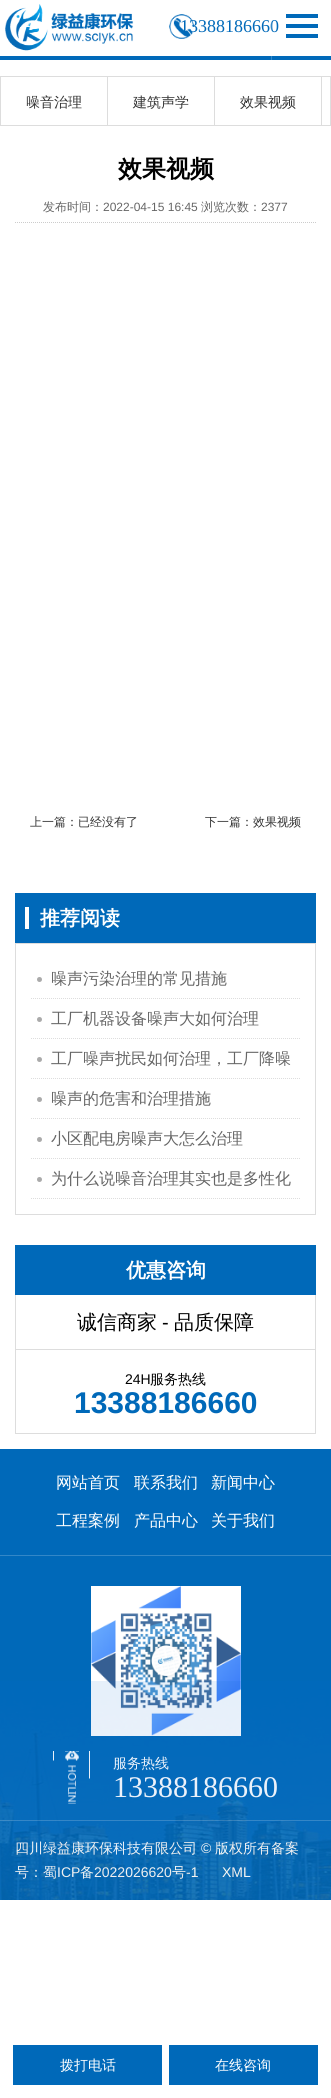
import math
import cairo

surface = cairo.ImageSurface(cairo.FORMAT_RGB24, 331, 2098)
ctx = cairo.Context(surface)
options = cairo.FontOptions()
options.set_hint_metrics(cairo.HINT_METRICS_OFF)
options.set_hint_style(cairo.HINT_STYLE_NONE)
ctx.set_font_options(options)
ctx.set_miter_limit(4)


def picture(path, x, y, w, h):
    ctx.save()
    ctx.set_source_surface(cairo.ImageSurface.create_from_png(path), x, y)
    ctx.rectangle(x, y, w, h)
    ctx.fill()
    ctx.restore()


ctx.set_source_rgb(1, 1, 1)
ctx.paint()
ctx.set_source_rgb(0, 0.412, 0.725)
ctx.rectangle(0, 56, 331, 4)
ctx.fill()
picture("img1.png", 5, 4, 129, 47)
picture("img2.png", 169, 14, 25, 25)
ctx.select_font_face("Liberation Serif")
ctx.set_font_size(18)
ctx.move_to(180, 32)
ctx.show_text("13388186660")
ctx.set_source_rgba(1, 1, 1, 0.2)
ctx.rectangle(271, 21, 1, 39)
ctx.fill()
ctx.set_source_rgb(0, 0.412, 0.725)
ctx.rectangle(286, 14, 32, 4)
ctx.fill()
ctx.rectangle(286, 24, 32, 4)
ctx.fill()
ctx.rectangle(286, 34, 32, 4)
ctx.fill()
ctx.rectangle(0.5, 76.5, 330, 49)
ctx.set_source_rgb(0.867, 0.867, 0.867)
ctx.set_line_width(1)
ctx.stroke()
ctx.rectangle(107, 77, 1, 48)
ctx.fill()
ctx.select_font_face("WenQuanYi Zen Hei Medium")
ctx.set_font_size(14)
ctx.set_source_rgb(0.2, 0.2, 0.2)
ctx.move_to(26, 107)
ctx.show_text("噪音治理")
ctx.set_source_rgb(0.867, 0.867, 0.867)
ctx.rectangle(214, 77, 1, 48)
ctx.fill()
ctx.set_source_rgb(0.2, 0.2, 0.2)
ctx.move_to(133, 107)
ctx.show_text("建筑声学")
ctx.set_source_rgb(0.867, 0.867, 0.867)
ctx.rectangle(321, 77, 1, 48)
ctx.fill()
ctx.set_source_rgb(0.2, 0.2, 0.2)
ctx.move_to(240, 107)
ctx.show_text("效果视频")
ctx.select_font_face("WenQuanYi Zen Hei", cairo.FONT_SLANT_NORMAL, cairo.FONT_WEIGHT_BOLD)
ctx.set_font_size(24)
ctx.set_source_rgb(0, 0, 0)
ctx.move_to(118, 177)
ctx.show_text("效果视频")
ctx.new_path()
ctx.move_to(15, 222.5)
ctx.line_to(316, 222.5)
ctx.set_source_rgb(0.8, 0.8, 0.8)
ctx.set_dash([1, 1])
ctx.stroke()
ctx.select_font_face("WenQuanYi Zen Hei Medium")
ctx.set_font_size(12)
ctx.set_source_rgb(0.4, 0.4, 0.4)
ctx.move_to(43, 211)
ctx.show_text("发布时间：")
ctx.select_font_face("Liberation Sans")
ctx.move_to(103, 211)
ctx.show_text("2022-04-15 16:45")
ctx.select_font_face("WenQuanYi Zen Hei Medium")
ctx.move_to(201, 211)
ctx.show_text("浏览次数：")
ctx.select_font_face("Liberation Sans")
ctx.move_to(261, 211)
ctx.show_text("2377")
ctx.select_font_face("WenQuanYi Zen Hei Medium")
ctx.set_source_rgb(0.2, 0.2, 0.2)
ctx.move_to(30, 826)
ctx.show_text("上一篇：已经没有了")
ctx.move_to(205, 826)
ctx.show_text("下一篇：效果视频")
ctx.set_source_rgb(0, 0.412, 0.725)
ctx.rectangle(15, 893, 301, 50)
ctx.fill()
ctx.set_source_rgb(1, 1, 1)
ctx.rectangle(25, 907, 4, 22)
ctx.fill()
ctx.select_font_face("WenQuanYi Zen Hei", cairo.FONT_SLANT_NORMAL, cairo.FONT_WEIGHT_BOLD)
ctx.set_font_size(20)
ctx.move_to(40, 925)
ctx.show_text("推荐阅读")
ctx.rectangle(15.5, 943.5, 300, 271)
ctx.set_source_rgb(0.867, 0.867, 0.867)
ctx.set_dash([])
ctx.stroke()
ctx.new_path()
ctx.move_to(31, 998.5)
ctx.line_to(300, 998.5)
ctx.set_dash([1, 1])
ctx.stroke()
ctx.set_source_rgb(0.667, 0.667, 0.667)
ctx.arc(39.5, 979.5, 2.5, 0, 2 * math.pi)
ctx.fill()
ctx.select_font_face("WenQuanYi Zen Hei Medium")
ctx.set_font_size(16)
ctx.set_source_rgb(0.4, 0.4, 0.4)
ctx.move_to(51, 984)
ctx.show_text("噪声污染治理的常见措施")
ctx.new_path()
ctx.move_to(31, 1038.5)
ctx.line_to(300, 1038.5)
ctx.set_source_rgb(0.867, 0.867, 0.867)
ctx.stroke()
ctx.set_source_rgb(0.667, 0.667, 0.667)
ctx.arc(39.5, 1019.5, 2.5, 0, 2 * math.pi)
ctx.fill()
ctx.set_source_rgb(0.4, 0.4, 0.4)
ctx.move_to(51, 1024)
ctx.show_text("工厂机器设备噪声大如何治理")
ctx.new_path()
ctx.move_to(31, 1078.5)
ctx.line_to(300, 1078.5)
ctx.set_source_rgb(0.867, 0.867, 0.867)
ctx.stroke()
ctx.set_source_rgb(0.667, 0.667, 0.667)
ctx.arc(39.5, 1059.5, 2.5, 0, 2 * math.pi)
ctx.fill()
ctx.set_source_rgb(0.4, 0.4, 0.4)
ctx.move_to(51, 1064)
ctx.show_text("工厂噪声扰民如何治理，工厂降噪")
ctx.new_path()
ctx.move_to(31, 1118.5)
ctx.line_to(300, 1118.5)
ctx.set_source_rgb(0.867, 0.867, 0.867)
ctx.stroke()
ctx.set_source_rgb(0.667, 0.667, 0.667)
ctx.arc(39.5, 1099.5, 2.5, 0, 2 * math.pi)
ctx.fill()
ctx.set_source_rgb(0.4, 0.4, 0.4)
ctx.move_to(51, 1104)
ctx.show_text("噪声的危害和治理措施")
ctx.new_path()
ctx.move_to(31, 1158.5)
ctx.line_to(300, 1158.5)
ctx.set_source_rgb(0.867, 0.867, 0.867)
ctx.stroke()
ctx.set_source_rgb(0.667, 0.667, 0.667)
ctx.arc(39.5, 1139.5, 2.5, 0, 2 * math.pi)
ctx.fill()
ctx.set_source_rgb(0.4, 0.4, 0.4)
ctx.move_to(51, 1144)
ctx.show_text("小区配电房噪声大怎么治理")
ctx.new_path()
ctx.move_to(31, 1198.5)
ctx.line_to(300, 1198.5)
ctx.set_source_rgb(0.867, 0.867, 0.867)
ctx.stroke()
ctx.set_source_rgb(0.667, 0.667, 0.667)
ctx.arc(39.5, 1179.5, 2.5, 0, 2 * math.pi)
ctx.fill()
ctx.set_source_rgb(0.4, 0.4, 0.4)
ctx.move_to(51, 1184)
ctx.show_text("为什么说噪音治理其实也是多性化")
ctx.set_source_rgb(0, 0.412, 0.725)
ctx.rectangle(15, 1245, 301, 50)
ctx.fill()
ctx.select_font_face("WenQuanYi Zen Hei", cairo.FONT_SLANT_NORMAL, cairo.FONT_WEIGHT_BOLD)
ctx.set_font_size(20)
ctx.set_source_rgb(1, 1, 1)
ctx.move_to(126, 1277)
ctx.show_text("优惠咨询")
ctx.set_source_rgb(0.867, 0.867, 0.867)
ctx.rectangle(315, 1295, 1, 139)
ctx.fill()
ctx.rectangle(15, 1349, 301, 1)
ctx.fill()
ctx.rectangle(15, 1295, 1, 55)
ctx.fill()
ctx.select_font_face("WenQuanYi Zen Hei Medium")
ctx.set_source_rgb(0, 0, 0)
ctx.move_to(77, 1329)
ctx.show_text("诚信商家")
ctx.select_font_face("Liberation Sans")
ctx.move_to(162, 1329)
ctx.show_text("-")
ctx.select_font_face("WenQuanYi Zen Hei Medium")
ctx.move_to(174, 1329)
ctx.show_text("品质保障")
ctx.set_source_rgb(0.867, 0.867, 0.867)
ctx.rectangle(15, 1433, 301, 1)
ctx.fill()
ctx.rectangle(15, 1350, 1, 84)
ctx.fill()
ctx.select_font_face("Liberation Sans")
ctx.set_font_size(14)
ctx.set_source_rgb(0, 0, 0)
ctx.move_to(125, 1384)
ctx.show_text("24H")
ctx.select_font_face("WenQuanYi Zen Hei Medium")
ctx.move_to(150, 1384)
ctx.show_text("服务热线")
ctx.select_font_face("Liberation Sans", cairo.FONT_SLANT_NORMAL, cairo.FONT_WEIGHT_BOLD)
ctx.set_font_size(30)
ctx.set_source_rgb(0, 0.412, 0.725)
ctx.move_to(74, 1413)
ctx.show_text("13388186660")
ctx.rectangle(0, 1449, 331, 451)
ctx.fill()
ctx.set_source_rgb(0.2, 0.529, 0.78)
ctx.rectangle(0, 1555, 331, 1)
ctx.fill()
ctx.select_font_face("WenQuanYi Zen Hei Medium")
ctx.set_font_size(16)
ctx.set_source_rgb(1, 1, 1)
ctx.move_to(56, 1488)
ctx.show_text("网站首页")
ctx.move_to(134, 1488)
ctx.show_text("联系我们")
ctx.move_to(211, 1488)
ctx.show_text("新闻中心")
ctx.move_to(56, 1526)
ctx.show_text("工程案例")
ctx.move_to(134, 1526)
ctx.show_text("产品中心")
ctx.move_to(211, 1526)
ctx.show_text("关于我们")
ctx.set_source_rgb(0.2, 0.529, 0.78)
ctx.rectangle(0, 1820, 331, 1)
ctx.fill()
picture("img3.png", 91, 1586, 150, 150)
picture("img4.png", 53, 1751, 37, 53)
ctx.set_font_size(14)
ctx.set_source_rgb(1, 1, 1)
ctx.move_to(113, 1768)
ctx.show_text("服务热线")
ctx.select_font_face("Liberation Serif")
ctx.set_font_size(30)
ctx.move_to(113, 1797)
ctx.show_text("13388186660")
ctx.select_font_face("WenQuanYi Zen Hei Medium")
ctx.set_font_size(14)
ctx.move_to(15, 1853)
ctx.show_text("四川绿益康环保科技有限公司")
ctx.select_font_face("Liberation Sans")
ctx.move_to(201, 1853)
ctx.show_text("©")
ctx.select_font_face("WenQuanYi Zen Hei Medium")
ctx.move_to(215, 1853)
ctx.show_text("版权所有备案")
ctx.move_to(15, 1877)
ctx.show_text("号：蜀")
ctx.select_font_face("Liberation Sans")
ctx.move_to(57, 1877)
ctx.show_text("ICP")
ctx.select_font_face("WenQuanYi Zen Hei Medium")
ctx.move_to(80, 1877)
ctx.show_text("备")
ctx.select_font_face("Liberation Sans")
ctx.move_to(94, 1877)
ctx.show_text("2022026620")
ctx.select_font_face("WenQuanYi Zen Hei Medium")
ctx.move_to(172, 1877)
ctx.show_text("号")
ctx.select_font_face("Liberation Sans")
ctx.move_to(186, 1877)
ctx.show_text("-1")
ctx.move_to(222, 1877)
ctx.show_text("XML")
picture("img5.png", 0, 1681, 331, 219)
ctx.set_source_rgb(0, 0.412, 0.725)
ctx.rectangle(13, 2045, 149, 40)
ctx.fill()
ctx.select_font_face("WenQuanYi Zen Hei Medium")
ctx.set_source_rgb(1, 1, 1)
ctx.move_to(60, 2070)
ctx.show_text("拨打电话")
ctx.set_source_rgb(0, 0.412, 0.725)
ctx.rectangle(169, 2045, 149, 40)
ctx.fill()
ctx.set_source_rgb(1, 1, 1)
ctx.move_to(215, 2070)
ctx.show_text("在线咨询")
surface.write_to_png("page.png")
